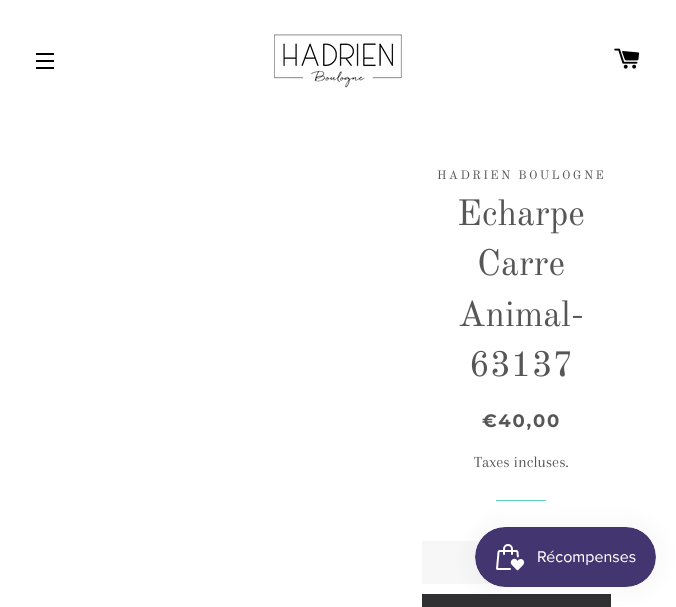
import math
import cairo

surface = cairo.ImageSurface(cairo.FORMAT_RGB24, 676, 607)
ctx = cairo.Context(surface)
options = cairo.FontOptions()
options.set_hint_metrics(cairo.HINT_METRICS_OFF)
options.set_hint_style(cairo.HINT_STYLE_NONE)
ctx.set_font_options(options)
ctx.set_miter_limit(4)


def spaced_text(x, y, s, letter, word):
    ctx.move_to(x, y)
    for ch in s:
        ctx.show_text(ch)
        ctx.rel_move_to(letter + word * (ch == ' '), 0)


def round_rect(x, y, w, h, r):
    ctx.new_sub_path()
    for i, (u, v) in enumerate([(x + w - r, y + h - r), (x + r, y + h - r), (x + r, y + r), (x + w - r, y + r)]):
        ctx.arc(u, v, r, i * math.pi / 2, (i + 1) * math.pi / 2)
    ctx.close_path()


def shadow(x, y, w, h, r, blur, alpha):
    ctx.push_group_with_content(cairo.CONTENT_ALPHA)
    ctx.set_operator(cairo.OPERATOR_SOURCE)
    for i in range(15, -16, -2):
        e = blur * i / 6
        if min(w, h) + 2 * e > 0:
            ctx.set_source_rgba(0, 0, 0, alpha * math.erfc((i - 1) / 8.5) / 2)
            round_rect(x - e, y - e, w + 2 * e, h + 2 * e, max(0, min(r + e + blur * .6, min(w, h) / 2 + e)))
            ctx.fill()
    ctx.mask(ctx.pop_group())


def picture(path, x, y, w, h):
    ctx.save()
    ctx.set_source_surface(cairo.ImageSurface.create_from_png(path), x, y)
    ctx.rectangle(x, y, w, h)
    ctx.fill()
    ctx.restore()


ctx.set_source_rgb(1, 1, 1)
ctx.paint()
ctx.set_source_rgb(0, 0, 0)
ctx.rectangle(36, 53, 18, 2)
ctx.fill()
ctx.rectangle(36, 60, 18, 2)
ctx.fill()
ctx.rectangle(36, 67, 18, 2)
ctx.fill()
picture("img1.png", 274, 34, 128, 54)
picture("img2.png", 614, 48, 26, 21)
ctx.select_font_face("Old Standard TT")
ctx.set_font_size(12)
ctx.set_source_rgb(0.337, 0.337, 0.337)
spaced_text(437, 179, "HADRIEN BOULOGNE", 2.4, 0)
ctx.set_font_size(36)
ctx.move_to(457, 225)
ctx.show_text("Echarpe")
ctx.move_to(477, 275)
ctx.show_text("Carre")
ctx.move_to(458, 326)
ctx.show_text("Animal-")
ctx.move_to(469, 376)
ctx.show_text("63137")
ctx.select_font_face("Montserrat", cairo.FONT_SLANT_NORMAL, cairo.FONT_WEIGHT_BOLD)
ctx.set_font_size(18)
spaced_text(482, 427, "€40,00", 1.75, 0)
ctx.select_font_face("Arapey")
ctx.set_font_size(16)
ctx.move_to(474, 467)
ctx.show_text("Taxes incluses.")
ctx.set_source_rgb(0.365, 0.824, 0.706)
ctx.rectangle(496, 500, 50, 1)
ctx.fill()
ctx.set_source_rgb(0.965, 0.965, 0.965)
ctx.rectangle(422, 541, 71, 43)
ctx.fill()
ctx.set_source_rgb(0.188, 0.184, 0.196)
ctx.rectangle(422, 594, 189, 13)
ctx.fill()
ctx.set_source_rgb(0, 0, 0)
shadow(475, 527, 181, 60, 30, 12.5, 0.05)
picture("img3.png", 475, 527, 181, 60)
surface.write_to_png("page.png")
